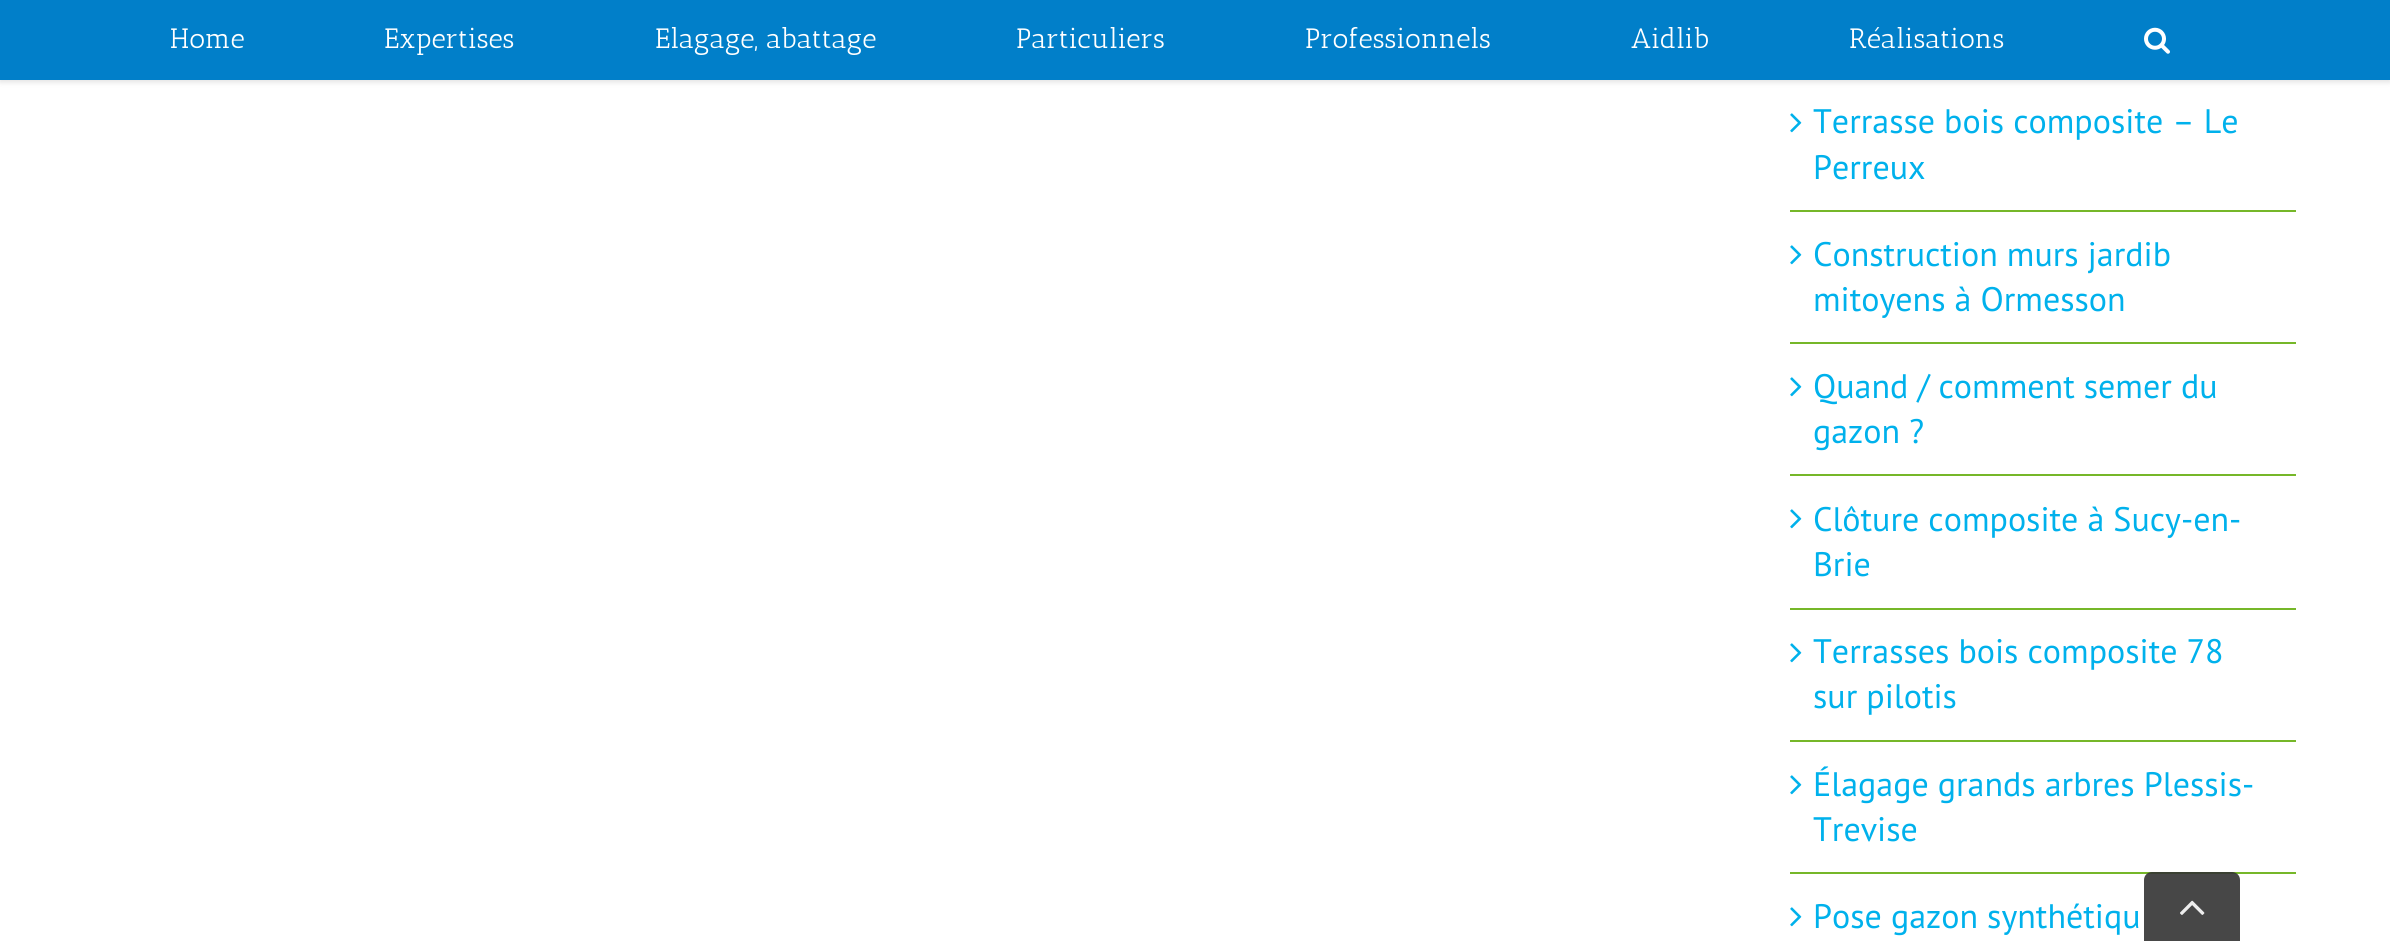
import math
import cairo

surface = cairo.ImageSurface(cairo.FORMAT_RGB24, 2390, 941)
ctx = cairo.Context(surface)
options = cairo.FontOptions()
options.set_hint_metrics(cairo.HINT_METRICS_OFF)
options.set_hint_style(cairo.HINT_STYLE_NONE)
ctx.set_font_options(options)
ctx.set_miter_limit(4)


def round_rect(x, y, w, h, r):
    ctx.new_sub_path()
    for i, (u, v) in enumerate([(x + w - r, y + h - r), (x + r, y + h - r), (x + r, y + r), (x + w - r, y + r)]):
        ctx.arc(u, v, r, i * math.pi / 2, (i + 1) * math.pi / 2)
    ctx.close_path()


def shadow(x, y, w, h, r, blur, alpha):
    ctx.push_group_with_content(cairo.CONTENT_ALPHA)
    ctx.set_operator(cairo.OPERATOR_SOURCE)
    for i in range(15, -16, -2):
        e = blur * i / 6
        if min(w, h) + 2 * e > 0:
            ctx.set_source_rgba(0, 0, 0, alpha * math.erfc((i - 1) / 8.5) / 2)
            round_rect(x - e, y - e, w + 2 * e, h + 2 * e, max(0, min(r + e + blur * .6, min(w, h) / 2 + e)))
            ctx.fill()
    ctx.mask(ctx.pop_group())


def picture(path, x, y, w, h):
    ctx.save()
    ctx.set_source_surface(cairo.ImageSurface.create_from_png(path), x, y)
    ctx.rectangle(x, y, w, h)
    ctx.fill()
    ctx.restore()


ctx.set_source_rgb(1, 1, 1)
ctx.paint()
ctx.set_source_rgb(0, 0, 0)
shadow(0, 2, 2390, 80, 0, 3, 0.12)
ctx.set_source_rgb(0.004, 0.498, 0.788)
ctx.rectangle(0, 0, 2390, 80)
ctx.fill()
ctx.select_font_face("Antic Slab")
ctx.set_font_size(28)
ctx.set_source_rgb(1, 1, 1)
ctx.move_to(170, 48)
ctx.show_text("Home")
ctx.move_to(384, 48)
ctx.show_text("Expertises")
ctx.move_to(655, 48)
ctx.show_text("Elagage, abattage")
ctx.move_to(1016, 48)
ctx.show_text("Particuliers")
ctx.move_to(1305, 48)
ctx.show_text("Professionnels")
ctx.move_to(1631, 48)
ctx.show_text("Aidlib")
ctx.move_to(1849, 48)
ctx.show_text("Réalisations")
picture("img1.png", 2144, 27, 26, 27)
ctx.set_source_rgb(0.463, 0.718, 0.161)
ctx.rectangle(1790, 210, 506, 2)
ctx.fill()
picture("img2.png", 1790, 113, 12, 20)
ctx.select_font_face("PT Sans")
ctx.set_font_size(34)
ctx.set_source_rgb(0, 0.694, 0.922)
ctx.move_to(1813, 133)
ctx.show_text("Terrasse bois composite – Le")
ctx.move_to(1813, 179)
ctx.show_text("Perreux")
ctx.set_source_rgb(0.463, 0.718, 0.161)
ctx.rectangle(1790, 342, 506, 2)
ctx.fill()
picture("img2.png", 1790, 245, 12, 20)
ctx.set_source_rgb(0, 0.694, 0.922)
ctx.move_to(1813, 266)
ctx.show_text("Construction murs jardib")
ctx.move_to(1813, 311)
ctx.show_text("mitoyens à Ormesson")
ctx.set_source_rgb(0.463, 0.718, 0.161)
ctx.rectangle(1790, 474, 506, 2)
ctx.fill()
picture("img2.png", 1790, 377, 12, 20)
ctx.set_source_rgb(0, 0.694, 0.922)
ctx.move_to(1813, 398)
ctx.show_text("Quand / comment semer du")
ctx.move_to(1813, 443)
ctx.show_text("gazon ?")
ctx.set_source_rgb(0.463, 0.718, 0.161)
ctx.rectangle(1790, 608, 506, 2)
ctx.fill()
picture("img2.png", 1790, 509, 12, 20)
ctx.set_source_rgb(0, 0.694, 0.922)
ctx.move_to(1813, 531)
ctx.show_text("Clôture composite à Sucy-en-")
ctx.move_to(1813, 576)
ctx.show_text("Brie")
ctx.set_source_rgb(0.463, 0.718, 0.161)
ctx.rectangle(1790, 740, 506, 2)
ctx.fill()
picture("img2.png", 1790, 643, 12, 20)
ctx.set_source_rgb(0, 0.694, 0.922)
ctx.move_to(1813, 663)
ctx.show_text("Terrasses bois composite 78")
ctx.move_to(1813, 708)
ctx.show_text("sur pilotis")
ctx.set_source_rgb(0.463, 0.718, 0.161)
ctx.rectangle(1790, 872, 506, 2)
ctx.fill()
picture("img2.png", 1790, 775, 12, 20)
ctx.set_source_rgb(0, 0.694, 0.922)
ctx.move_to(1813, 796)
ctx.show_text("Élagage grands arbres Plessis-")
ctx.move_to(1813, 841)
ctx.show_text("Trevise")
picture("img2.png", 1790, 907, 12, 20)
ctx.move_to(1813, 928)
ctx.show_text("Pose gazon synthétiqu")
ctx.set_source_rgba(0.2, 0.2, 0.2, 0.9)
ctx.new_path()
ctx.move_to(2152, 872)
ctx.line_to(2232, 872)
ctx.curve_to(2236.5, 872, 2240, 875.5, 2240, 880)
ctx.line_to(2240, 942)
ctx.line_to(2144, 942)
ctx.line_to(2144, 880)
ctx.curve_to(2144, 875.5, 2147.5, 872, 2152, 872)
ctx.close_path()
ctx.fill()
picture("img3.png", 2180, 900, 25, 15)
surface.write_to_png("page.png")
